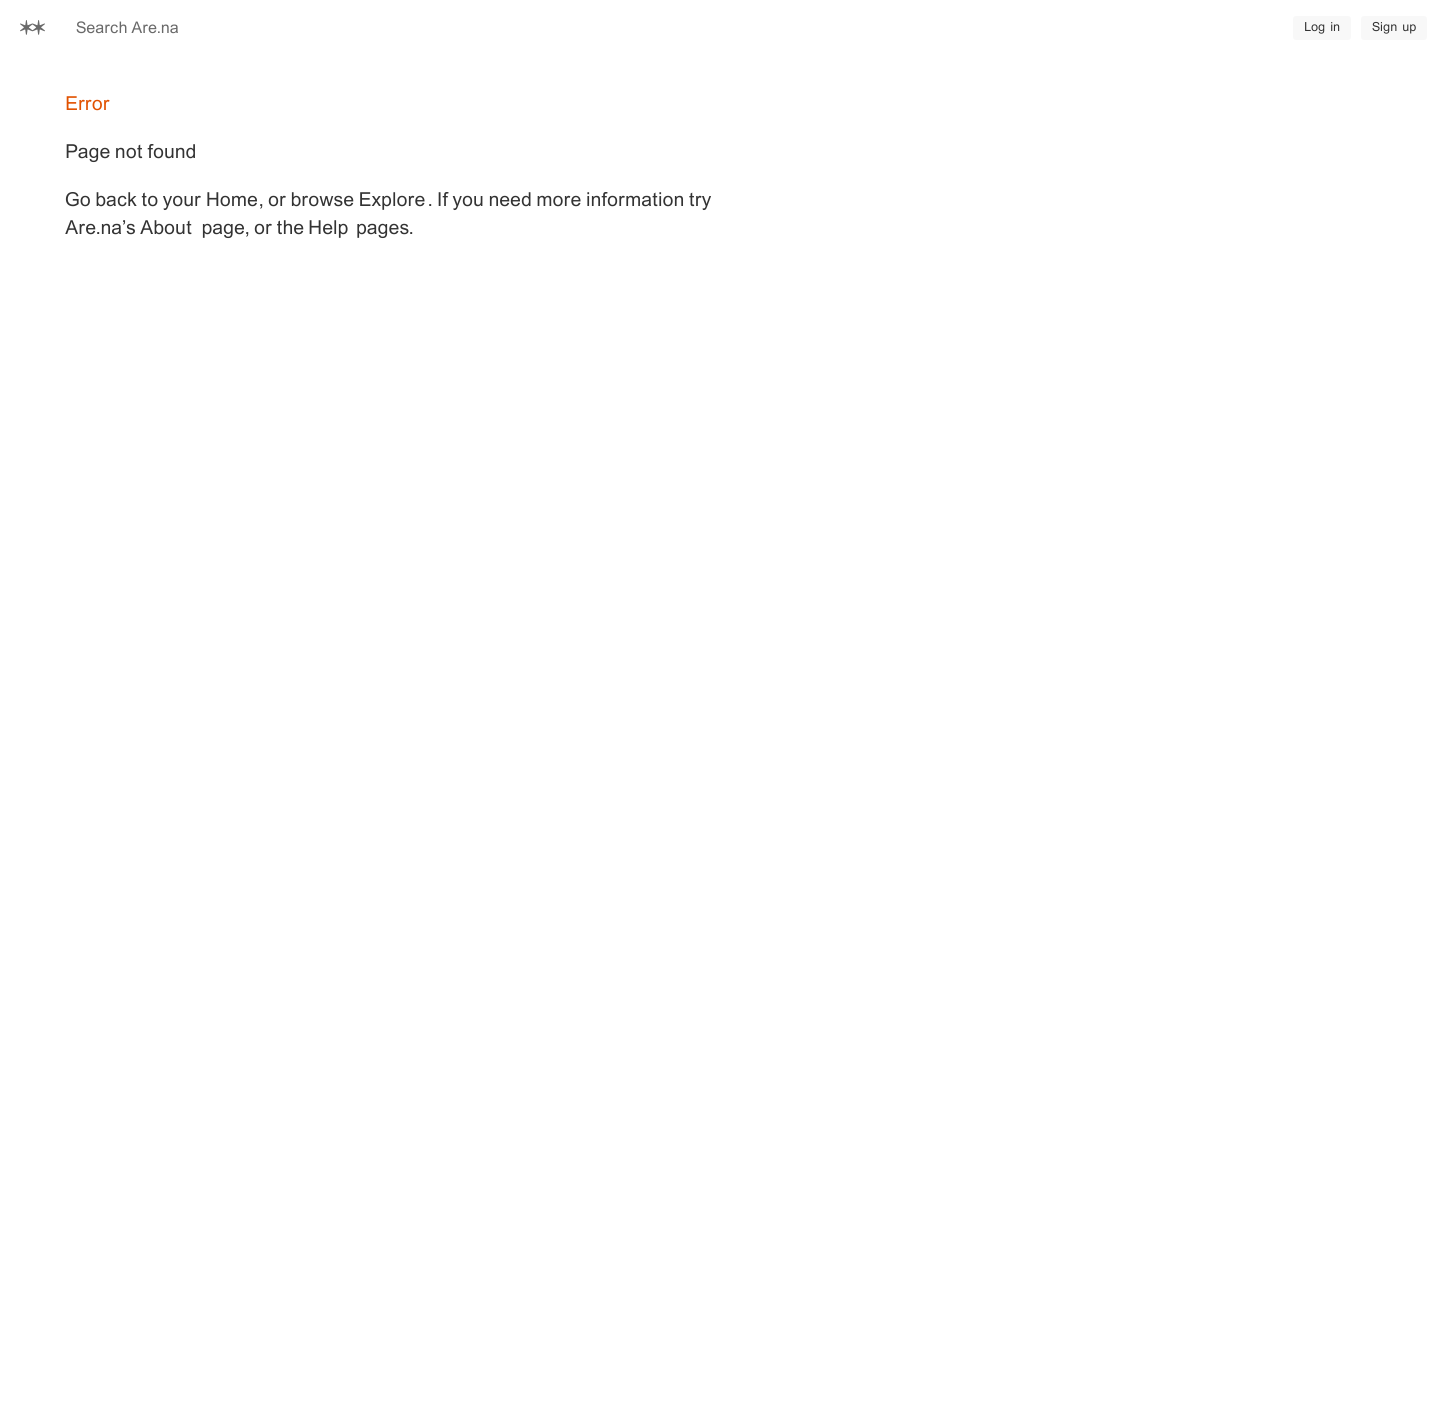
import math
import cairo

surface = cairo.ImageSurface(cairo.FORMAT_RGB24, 1447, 1425)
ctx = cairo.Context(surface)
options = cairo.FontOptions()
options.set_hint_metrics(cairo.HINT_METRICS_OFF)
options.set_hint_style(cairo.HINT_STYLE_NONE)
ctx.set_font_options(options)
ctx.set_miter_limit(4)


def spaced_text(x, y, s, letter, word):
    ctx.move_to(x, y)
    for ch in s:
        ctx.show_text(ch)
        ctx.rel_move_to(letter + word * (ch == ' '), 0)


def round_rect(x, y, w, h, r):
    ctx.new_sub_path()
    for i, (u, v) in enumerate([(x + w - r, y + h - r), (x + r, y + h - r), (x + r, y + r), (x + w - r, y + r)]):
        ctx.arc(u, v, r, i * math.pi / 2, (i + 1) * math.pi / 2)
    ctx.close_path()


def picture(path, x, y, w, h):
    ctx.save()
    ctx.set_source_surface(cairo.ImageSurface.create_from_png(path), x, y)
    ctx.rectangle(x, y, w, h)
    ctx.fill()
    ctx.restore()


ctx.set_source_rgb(1, 1, 1)
ctx.paint()
picture("img1.png", 20, 20, 25, 15)
ctx.select_font_face("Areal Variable")
ctx.set_font_size(16)
ctx.set_source_rgb(0.412, 0.412, 0.412)
ctx.move_to(76, 33)
ctx.show_text("Search Are.na")
ctx.set_source_rgb(0.969, 0.969, 0.969)
round_rect(1293, 16, 58, 24, 3)
ctx.fill()
ctx.set_font_size(12.5)
ctx.set_source_rgb(0.2, 0.2, 0.2)
spaced_text(1304, 31, "Log in", 0, 2)
ctx.set_source_rgb(0.969, 0.969, 0.969)
round_rect(1361, 16, 66, 24, 3)
ctx.fill()
ctx.set_source_rgb(0.2, 0.2, 0.2)
spaced_text(1372, 31, "Sign up", 0, 2)
ctx.set_font_size(19.25)
ctx.set_source_rgb(0.882, 0.318, 0)
ctx.move_to(65, 110)
ctx.show_text("Error")
ctx.set_source_rgb(0.2, 0.2, 0.2)
ctx.move_to(65, 158)
ctx.show_text("Page not found")
ctx.move_to(65, 206)
ctx.show_text("Go back to your Home")
ctx.move_to(259, 206)
ctx.show_text(", or browse Explore")
ctx.move_to(428, 206)
ctx.show_text(". If you need more information try")
ctx.move_to(65, 234)
ctx.show_text("Are.na’s")
spaced_text(140, 234, "About page", 0, 5)
ctx.move_to(245, 234)
ctx.show_text(", or the")
spaced_text(308, 234, "Help pages", 0, 3)
ctx.move_to(409, 234)
ctx.show_text(".")
surface.write_to_png("page.png")
